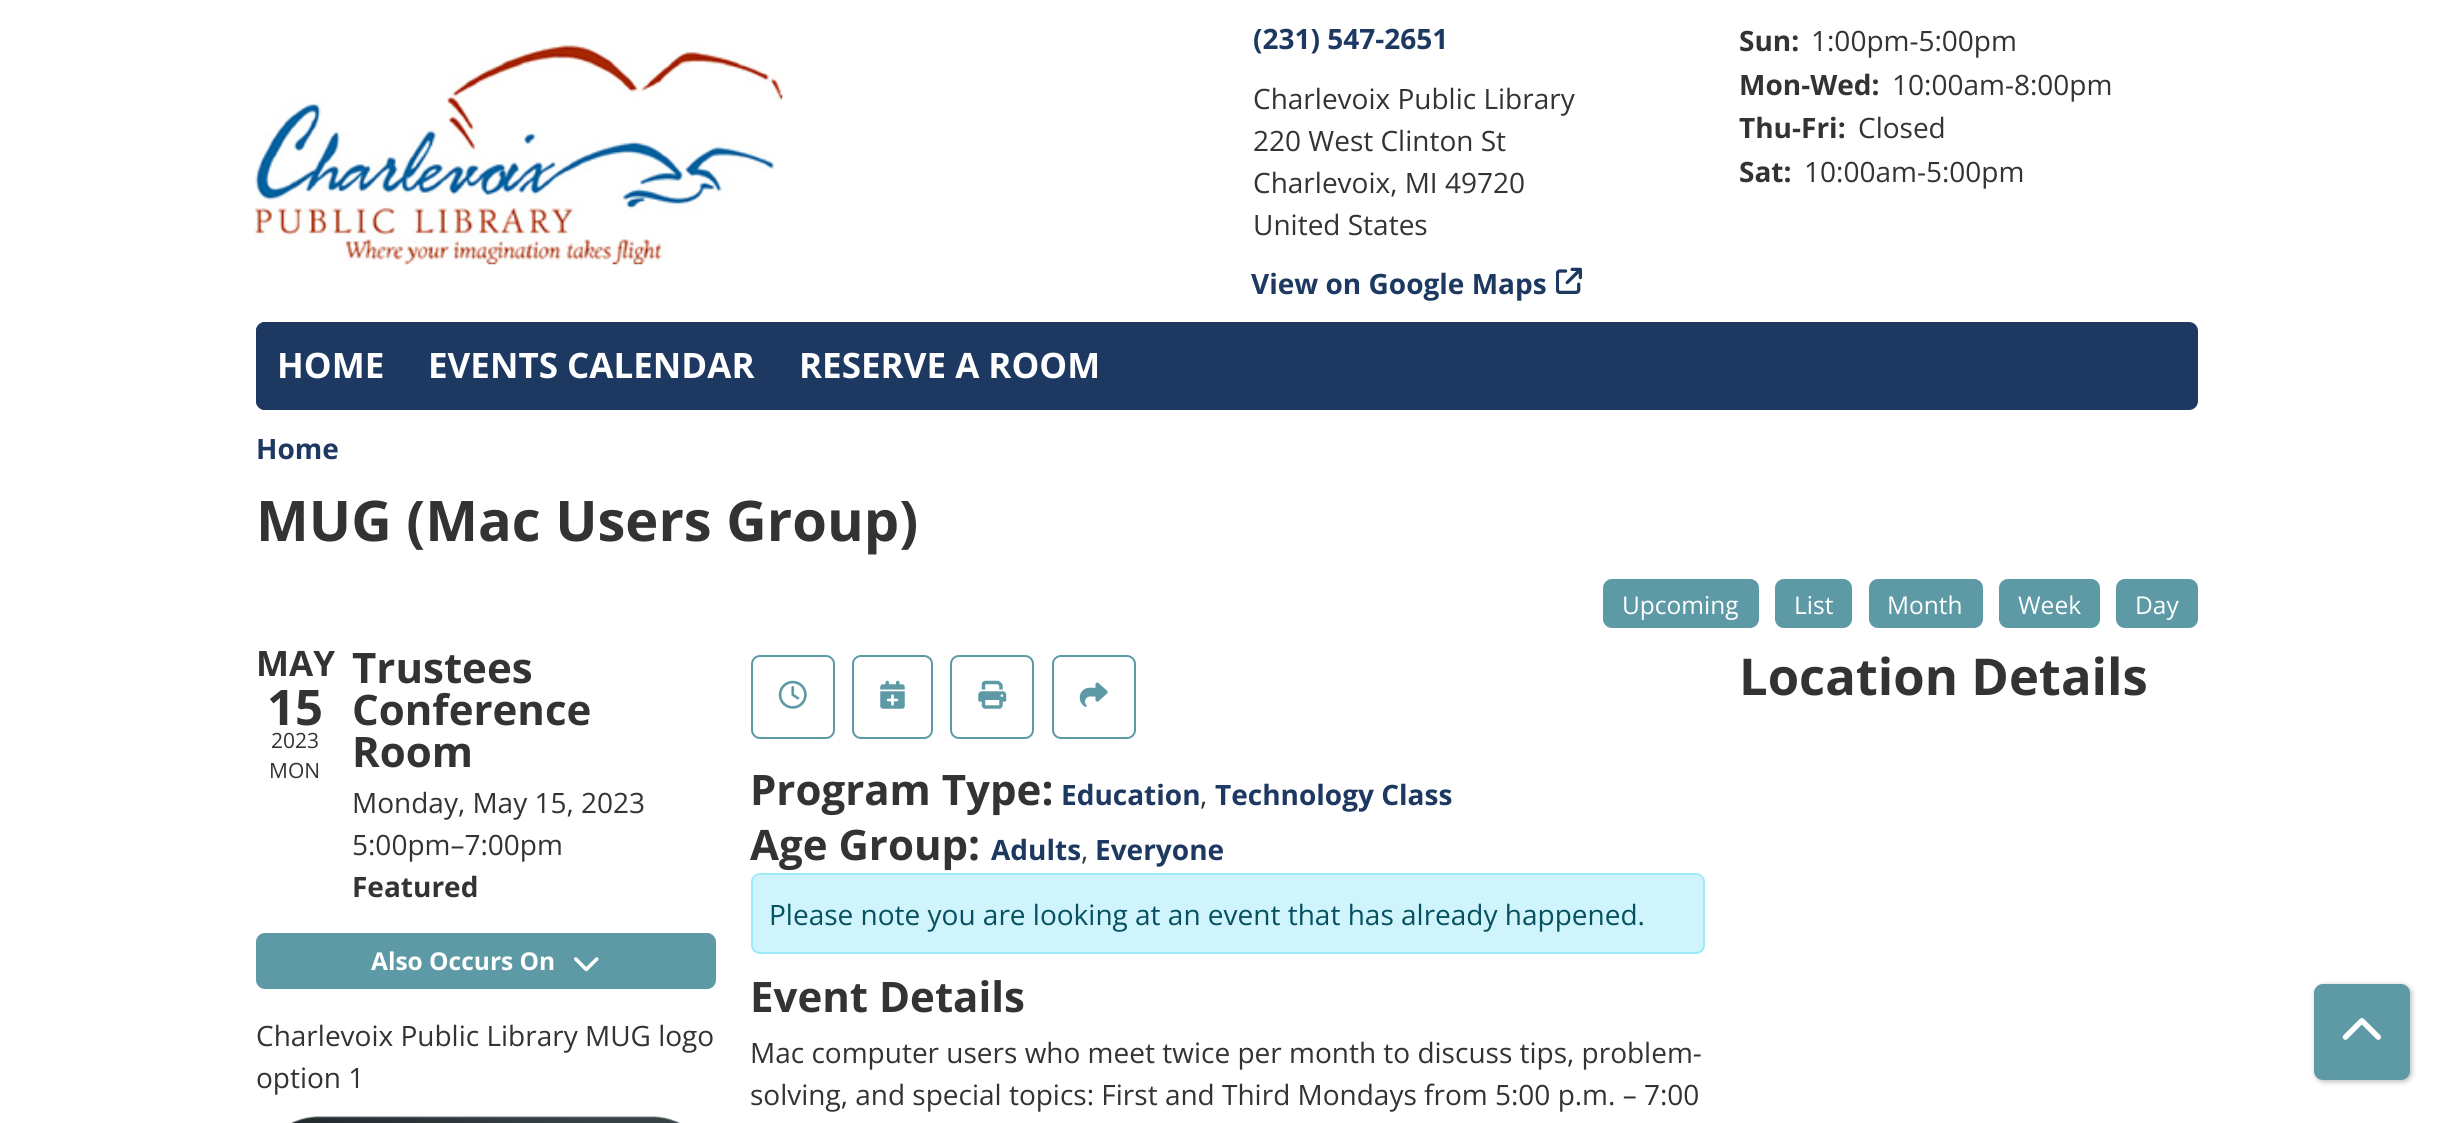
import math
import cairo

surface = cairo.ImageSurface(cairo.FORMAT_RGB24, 2452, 1123)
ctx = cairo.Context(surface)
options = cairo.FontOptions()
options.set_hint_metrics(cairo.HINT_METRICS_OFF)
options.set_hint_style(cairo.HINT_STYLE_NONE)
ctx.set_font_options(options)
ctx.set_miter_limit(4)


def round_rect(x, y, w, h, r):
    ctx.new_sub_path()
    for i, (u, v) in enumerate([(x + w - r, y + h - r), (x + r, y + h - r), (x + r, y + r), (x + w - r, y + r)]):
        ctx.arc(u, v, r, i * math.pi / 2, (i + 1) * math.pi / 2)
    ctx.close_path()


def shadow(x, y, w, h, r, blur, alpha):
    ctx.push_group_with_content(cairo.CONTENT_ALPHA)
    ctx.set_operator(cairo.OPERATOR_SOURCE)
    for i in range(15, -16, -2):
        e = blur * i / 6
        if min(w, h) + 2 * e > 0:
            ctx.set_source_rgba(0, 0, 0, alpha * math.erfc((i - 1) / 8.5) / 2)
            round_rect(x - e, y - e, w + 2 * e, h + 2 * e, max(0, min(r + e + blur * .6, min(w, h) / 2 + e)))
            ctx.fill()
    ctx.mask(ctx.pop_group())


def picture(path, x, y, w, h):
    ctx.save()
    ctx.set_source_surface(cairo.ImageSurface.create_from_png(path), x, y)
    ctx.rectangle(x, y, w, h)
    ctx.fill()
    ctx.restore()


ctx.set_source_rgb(1, 1, 1)
ctx.paint()
picture("img1.png", 255, 44, 528, 221)
ctx.select_font_face("Open Sans", cairo.FONT_SLANT_NORMAL, cairo.FONT_WEIGHT_BOLD)
ctx.set_font_size(28)
ctx.set_source_rgb(0.114, 0.224, 0.38)
ctx.move_to(1253, 49)
ctx.show_text("(231) 547-2651")
ctx.select_font_face("Open Sans")
ctx.set_source_rgb(0.2, 0.2, 0.2)
ctx.move_to(1253, 109)
ctx.show_text("Charlevoix Public Library")
ctx.move_to(1253, 151)
ctx.show_text("220 West Clinton St")
ctx.move_to(1253, 193)
ctx.show_text("Charlevoix, MI 49720")
ctx.move_to(1253, 235)
ctx.show_text("United States")
ctx.select_font_face("Open Sans", cairo.FONT_SLANT_NORMAL, cairo.FONT_WEIGHT_BOLD)
ctx.set_source_rgb(0.114, 0.224, 0.38)
ctx.move_to(1251, 294)
ctx.show_text("View on Google Maps")
picture("img2.png", 1556, 267, 26, 27)
ctx.set_source_rgb(0.2, 0.2, 0.2)
ctx.move_to(1739, 51)
ctx.show_text("Sun:")
ctx.select_font_face("Open Sans")
ctx.move_to(1811, 51)
ctx.show_text("1:00pm-5:00pm")
ctx.select_font_face("Open Sans", cairo.FONT_SLANT_NORMAL, cairo.FONT_WEIGHT_BOLD)
ctx.move_to(1739, 95)
ctx.show_text("Mon-Wed:")
ctx.select_font_face("Open Sans")
ctx.move_to(1892, 95)
ctx.show_text("10:00am-8:00pm")
ctx.select_font_face("Open Sans", cairo.FONT_SLANT_NORMAL, cairo.FONT_WEIGHT_BOLD)
ctx.move_to(1739, 138)
ctx.show_text("Thu-Fri:")
ctx.select_font_face("Open Sans")
ctx.move_to(1858, 138)
ctx.show_text("Closed")
ctx.select_font_face("Open Sans", cairo.FONT_SLANT_NORMAL, cairo.FONT_WEIGHT_BOLD)
ctx.move_to(1739, 182)
ctx.show_text("Sat:")
ctx.select_font_face("Open Sans")
ctx.move_to(1804, 182)
ctx.show_text("10:00am-5:00pm")
ctx.set_source_rgb(0.114, 0.224, 0.38)
round_rect(256, 322, 1942, 88, 9)
ctx.fill()
ctx.new_path()
ctx.move_to(265, 322)
ctx.line_to(406, 322)
ctx.line_to(406, 410)
ctx.line_to(265, 410)
ctx.curve_to(260, 410, 256, 406, 256, 401)
ctx.line_to(256, 331)
ctx.curve_to(256, 326, 260, 322, 265, 322)
ctx.close_path()
ctx.fill()
ctx.select_font_face("Open Sans", cairo.FONT_SLANT_NORMAL, cairo.FONT_WEIGHT_BOLD)
ctx.set_font_size(35)
ctx.set_source_rgb(1, 1, 1)
ctx.move_to(277, 378)
ctx.show_text("HOME")
ctx.move_to(428, 378)
ctx.show_text("EVENTS CALENDAR")
ctx.move_to(799, 378)
ctx.show_text("RESERVE A ROOM")
ctx.set_font_size(28)
ctx.set_source_rgb(0.114, 0.224, 0.38)
ctx.move_to(256, 459)
ctx.show_text("Home")
ctx.set_font_size(56)
ctx.set_source_rgb(0.2, 0.2, 0.2)
ctx.move_to(256, 541)
ctx.show_text("MUG (Mac Users Group)")
ctx.set_source_rgb(0.369, 0.604, 0.647)
round_rect(1604, 580, 154, 47, 8)
ctx.fill_preserve()
ctx.stroke()
ctx.select_font_face("Open Sans")
ctx.set_font_size(24.5)
ctx.set_source_rgb(1, 1, 1)
ctx.move_to(1622, 614)
ctx.show_text("Upcoming")
ctx.set_source_rgb(0.369, 0.604, 0.647)
round_rect(1776, 580, 75, 47, 8)
ctx.fill_preserve()
ctx.stroke()
ctx.set_source_rgb(1, 1, 1)
ctx.move_to(1794, 614)
ctx.show_text("List")
ctx.set_source_rgb(0.369, 0.604, 0.647)
round_rect(1870, 580, 112, 47, 8)
ctx.fill_preserve()
ctx.stroke()
ctx.set_source_rgb(1, 1, 1)
ctx.move_to(1887, 614)
ctx.show_text("Month")
ctx.set_source_rgb(0.369, 0.604, 0.647)
round_rect(2000, 580, 99, 47, 8)
ctx.fill_preserve()
ctx.stroke()
ctx.set_source_rgb(1, 1, 1)
ctx.move_to(2018, 614)
ctx.show_text("Week")
ctx.set_source_rgb(0.369, 0.604, 0.647)
round_rect(2117, 580, 80, 47, 8)
ctx.fill_preserve()
ctx.stroke()
ctx.set_source_rgb(1, 1, 1)
ctx.move_to(2135, 614)
ctx.show_text("Day")
ctx.select_font_face("Open Sans", cairo.FONT_SLANT_NORMAL, cairo.FONT_WEIGHT_BOLD)
ctx.set_font_size(35)
ctx.set_source_rgb(0.2, 0.2, 0.2)
ctx.move_to(256, 676)
ctx.show_text("MAY")
ctx.set_font_size(49)
ctx.move_to(267, 725)
ctx.show_text("15")
ctx.select_font_face("Open Sans")
ctx.set_font_size(21)
ctx.move_to(271, 748)
ctx.show_text("2023")
ctx.move_to(269, 778)
ctx.show_text("MON")
ctx.select_font_face("Open Sans", cairo.FONT_SLANT_NORMAL, cairo.FONT_WEIGHT_BOLD)
ctx.set_font_size(42)
ctx.move_to(352, 683)
ctx.show_text("Trustees")
ctx.move_to(352, 725)
ctx.show_text("Conference")
ctx.move_to(352, 767)
ctx.show_text("Room")
ctx.select_font_face("Open Sans")
ctx.set_font_size(28)
ctx.move_to(352, 813)
ctx.show_text("Monday, May 15, 2023")
ctx.move_to(352, 855)
ctx.show_text("5:00pm–7:00pm")
ctx.select_font_face("Open Sans", cairo.FONT_SLANT_NORMAL, cairo.FONT_WEIGHT_BOLD)
ctx.move_to(352, 897)
ctx.show_text("Featured")
ctx.set_source_rgb(0.369, 0.604, 0.647)
round_rect(257, 934, 458, 54, 8)
ctx.fill_preserve()
ctx.stroke()
ctx.set_font_size(24.5)
ctx.set_source_rgb(1, 1, 1)
ctx.move_to(371, 970)
ctx.show_text("Also Occurs On")
picture("img3.png", 574, 957, 25, 15)
ctx.select_font_face("Open Sans")
ctx.set_font_size(28)
ctx.set_source_rgb(0.2, 0.2, 0.2)
ctx.move_to(256, 1046)
ctx.show_text("Charlevoix Public Library MUG logo")
ctx.move_to(256, 1088)
ctx.show_text("option 1")
picture("img4.png", 291, 1116, 389, 7)
ctx.select_font_face("Open Sans", cairo.FONT_SLANT_NORMAL, cairo.FONT_WEIGHT_BOLD)
ctx.set_font_size(50.75)
ctx.move_to(1739, 695)
ctx.show_text("Location Details")
round_rect(752, 656, 82, 82, 8)
ctx.set_source_rgb(0.369, 0.604, 0.647)
ctx.stroke()
picture("img5.png", 778, 680, 29, 29)
round_rect(853, 656, 79, 82, 8)
ctx.stroke()
picture("img6.png", 880, 680, 25, 29)
round_rect(951, 656, 82, 82, 8)
ctx.stroke()
picture("img7.png", 978, 680, 29, 29)
round_rect(1053, 656, 82, 82, 8)
ctx.stroke()
picture("img8.png", 1079, 682, 29, 25)
ctx.set_font_size(42)
ctx.set_source_rgb(0.2, 0.2, 0.2)
ctx.move_to(750, 805)
ctx.show_text("Program Type:")
ctx.set_font_size(28)
ctx.set_source_rgb(0.114, 0.224, 0.38)
ctx.move_to(1061, 805)
ctx.show_text("Education")
ctx.select_font_face("Open Sans")
ctx.set_source_rgb(0.2, 0.2, 0.2)
ctx.move_to(1200, 805)
ctx.show_text(",")
ctx.select_font_face("Open Sans", cairo.FONT_SLANT_NORMAL, cairo.FONT_WEIGHT_BOLD)
ctx.set_source_rgb(0.114, 0.224, 0.38)
ctx.move_to(1215, 805)
ctx.show_text("Technology Class")
ctx.set_font_size(42)
ctx.set_source_rgb(0.2, 0.2, 0.2)
ctx.move_to(750, 860)
ctx.show_text("Age Group:")
ctx.set_font_size(28)
ctx.set_source_rgb(0.114, 0.224, 0.38)
ctx.move_to(991, 860)
ctx.show_text("Adults")
ctx.select_font_face("Open Sans")
ctx.set_source_rgb(0.2, 0.2, 0.2)
ctx.move_to(1081, 860)
ctx.show_text(",")
ctx.select_font_face("Open Sans", cairo.FONT_SLANT_NORMAL, cairo.FONT_WEIGHT_BOLD)
ctx.set_source_rgb(0.114, 0.224, 0.38)
ctx.move_to(1095, 860)
ctx.show_text("Everyone")
ctx.set_source_rgb(0.812, 0.957, 0.988)
round_rect(752, 874, 952, 79, 8)
ctx.fill_preserve()
ctx.set_source_rgb(0.62, 0.918, 0.976)
ctx.stroke()
ctx.select_font_face("Open Sans")
ctx.set_source_rgb(0.02, 0.318, 0.376)
ctx.move_to(769, 925)
ctx.show_text("Please note you are looking at an event that has already happened.")
ctx.select_font_face("Open Sans", cairo.FONT_SLANT_NORMAL, cairo.FONT_WEIGHT_BOLD)
ctx.set_font_size(42)
ctx.set_source_rgb(0.2, 0.2, 0.2)
ctx.move_to(750, 1012)
ctx.show_text("Event Details")
ctx.select_font_face("Open Sans")
ctx.set_font_size(28)
ctx.move_to(750, 1063)
ctx.show_text("Mac computer users who meet twice per month to discuss tips, problem-")
ctx.move_to(750, 1105)
ctx.show_text("solving, and special topics: First and Third Mondays from 5:00 p.m. – 7:00")
ctx.set_source_rgb(0, 0, 0)
shadow(2315, 985, 97, 97, 9, 2.5, 0.25)
ctx.set_source_rgb(0.369, 0.604, 0.647)
round_rect(2315, 985, 94, 94, 8)
ctx.fill_preserve()
ctx.stroke()
picture("img9.png", 2342, 1018, 39, 22)
surface.write_to_png("page.png")
